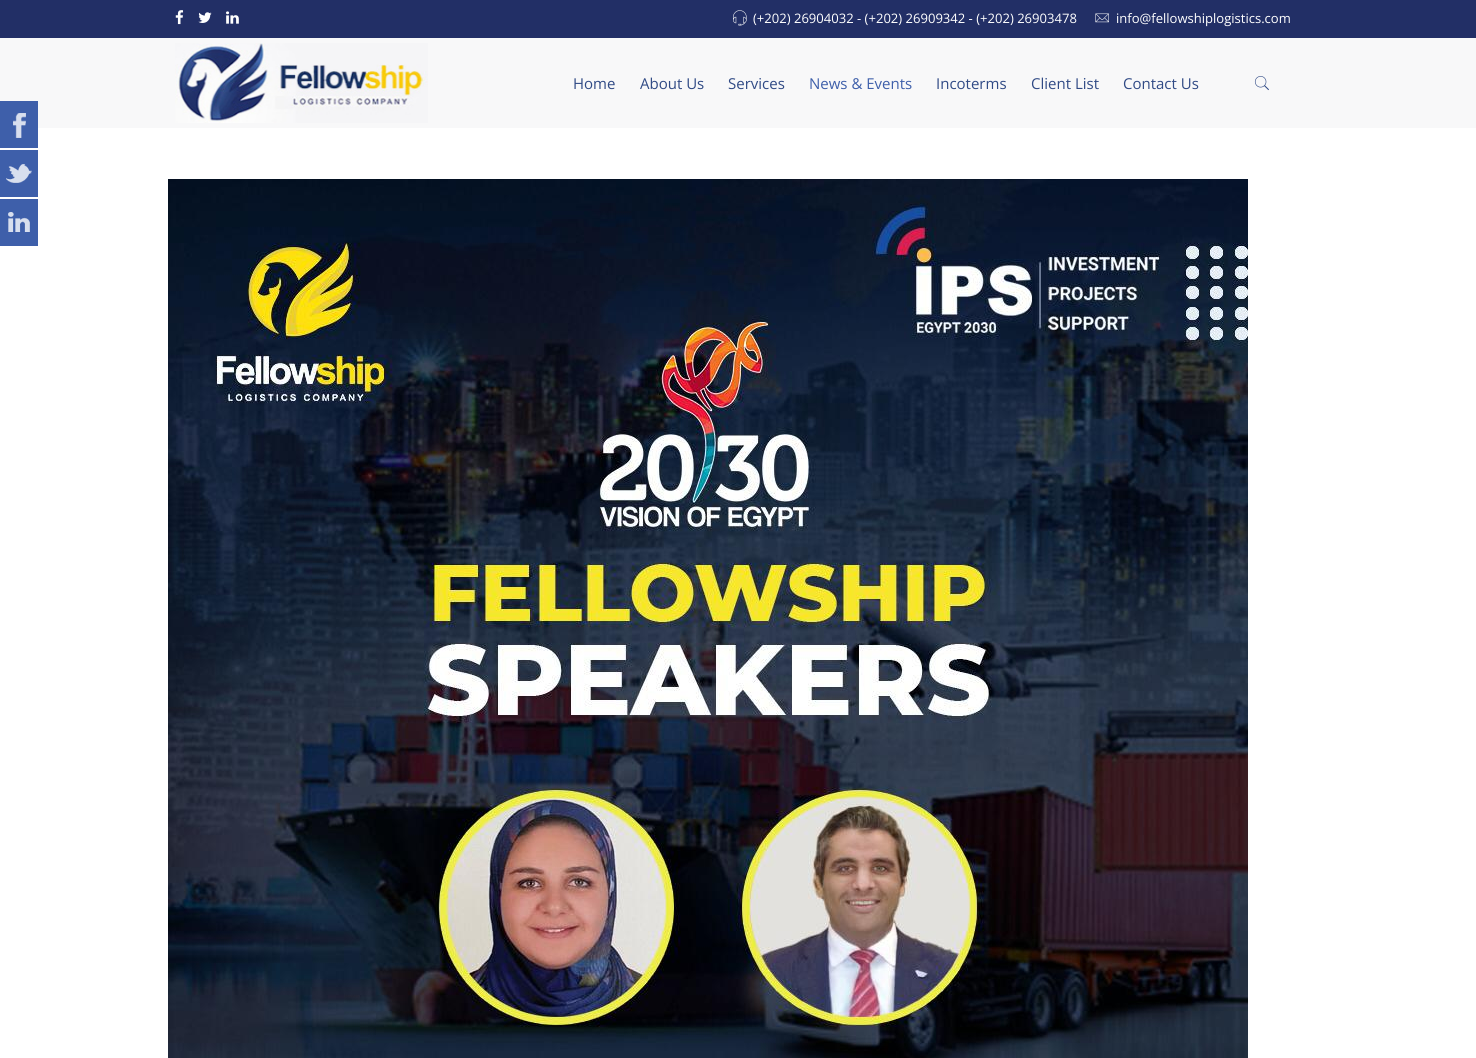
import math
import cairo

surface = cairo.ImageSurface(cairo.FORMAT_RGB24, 1476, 1058)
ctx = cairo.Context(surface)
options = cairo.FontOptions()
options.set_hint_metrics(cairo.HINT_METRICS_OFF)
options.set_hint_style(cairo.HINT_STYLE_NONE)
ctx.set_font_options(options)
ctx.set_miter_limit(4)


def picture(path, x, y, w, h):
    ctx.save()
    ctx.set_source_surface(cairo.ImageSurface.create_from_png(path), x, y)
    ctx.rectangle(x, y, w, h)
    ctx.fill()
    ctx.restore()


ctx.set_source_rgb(1, 1, 1)
ctx.paint()
ctx.set_source_rgb(0.133, 0.184, 0.4)
ctx.rectangle(0, 0, 1476, 38)
ctx.fill()
picture("img1.png", 175, 10, 9, 15)
picture("img2.png", 198, 12, 14, 11)
picture("img3.png", 226, 11, 13, 13)
picture("img4.png", 733, 10, 14, 16)
ctx.select_font_face("Open Sans")
ctx.set_font_size(13.05)
ctx.set_source_rgb(1, 1, 1)
ctx.move_to(753, 23)
ctx.show_text("(+202) 26904032 - (+202) 26909342 - (+202) 26903478")
picture("img5.png", 1095, 13, 14, 10)
ctx.move_to(1116, 23)
ctx.show_text("info@fellowshiplogistics.com")
ctx.set_source_rgb(0.969, 0.969, 0.976)
ctx.rectangle(0, 38, 1476, 90)
ctx.fill()
picture("img6.png", 175, 43, 253, 80)
ctx.set_font_size(15)
ctx.set_source_rgb(0.188, 0.29, 0.522)
ctx.move_to(573, 89)
ctx.show_text("Home")
ctx.move_to(640, 89)
ctx.show_text("About Us")
ctx.move_to(728, 89)
ctx.show_text("Services")
ctx.set_source_rgb(0.243, 0.373, 0.667)
ctx.move_to(809, 89)
ctx.show_text("News & Events")
ctx.set_source_rgb(0.188, 0.29, 0.522)
ctx.move_to(936, 89)
ctx.show_text("Incoterms")
ctx.move_to(1031, 89)
ctx.show_text("Client List")
ctx.move_to(1123, 89)
ctx.show_text("Contact Us")
picture("img7.png", 1254, 76, 15, 15)
picture("img8.png", 168, 179, 1080, 879)
ctx.set_source_rgb(0.243, 0.373, 0.667)
ctx.rectangle(0, 101, 38, 47)
ctx.fill()
picture("img9.png", 13, 113, 13, 25)
ctx.rectangle(0, 150, 38, 47)
ctx.fill()
picture("img10.png", 6, 164, 26, 19)
ctx.rectangle(0, 199, 38, 47)
ctx.fill()
picture("img11.png", 8, 212, 22, 20)
surface.write_to_png("page.png")
